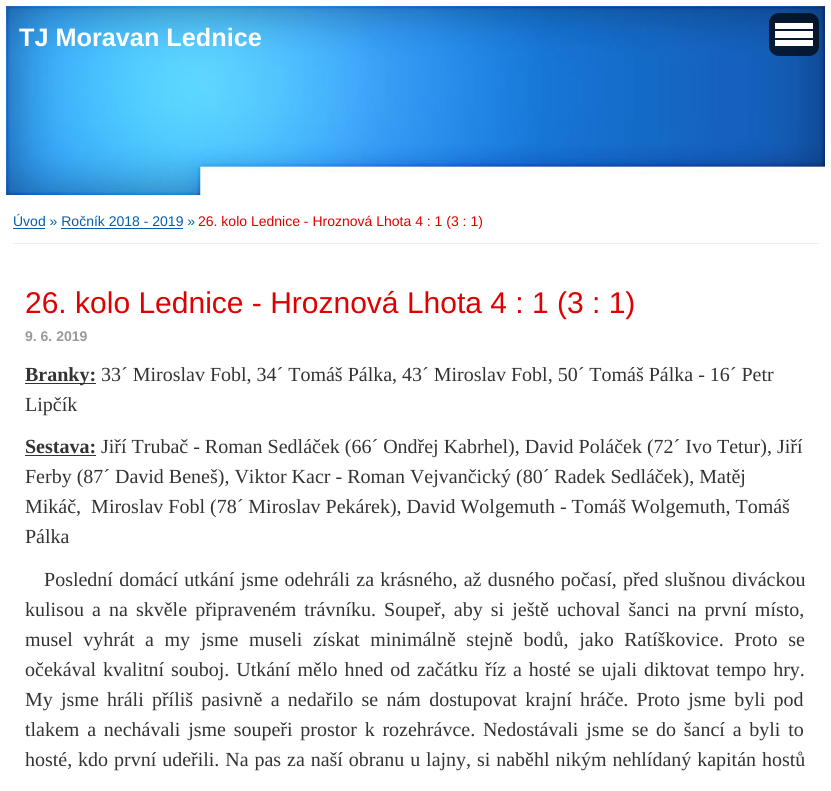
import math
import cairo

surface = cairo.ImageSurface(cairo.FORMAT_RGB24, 831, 791)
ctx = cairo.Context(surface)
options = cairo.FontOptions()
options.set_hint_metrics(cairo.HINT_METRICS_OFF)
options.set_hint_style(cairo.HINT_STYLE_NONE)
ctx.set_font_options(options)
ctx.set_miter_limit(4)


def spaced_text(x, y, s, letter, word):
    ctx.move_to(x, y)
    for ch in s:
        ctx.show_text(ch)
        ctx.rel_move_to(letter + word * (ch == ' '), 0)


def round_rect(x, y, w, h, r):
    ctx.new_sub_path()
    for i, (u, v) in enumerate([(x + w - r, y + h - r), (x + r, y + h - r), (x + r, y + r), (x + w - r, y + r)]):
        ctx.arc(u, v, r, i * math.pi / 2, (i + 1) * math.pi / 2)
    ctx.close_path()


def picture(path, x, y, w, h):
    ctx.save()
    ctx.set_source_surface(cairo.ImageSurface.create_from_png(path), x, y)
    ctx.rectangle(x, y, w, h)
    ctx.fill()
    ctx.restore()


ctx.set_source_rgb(0.227, 0.659, 0.957)
ctx.paint()
picture("img1.png", 6, 6, 819, 189)
ctx.rectangle(3, 3, 825, 195)
ctx.set_source_rgb(1, 1, 1)
ctx.set_line_width(6)
ctx.stroke()
ctx.select_font_face("Liberation Sans", cairo.FONT_SLANT_NORMAL, cairo.FONT_WEIGHT_BOLD)
ctx.set_font_size(25.25)
ctx.move_to(19, 46)
ctx.show_text("TJ Moravan Lednice")
ctx.set_source_rgba(0, 0, 0, 0.7)
round_rect(769, 13, 50, 43, 10)
ctx.fill()
ctx.set_source_rgb(1, 1, 1)
ctx.rectangle(775, 23, 38, 6)
ctx.fill()
ctx.rectangle(775, 31, 38, 7)
ctx.fill()
ctx.rectangle(775, 40, 38, 6)
ctx.fill()
ctx.rectangle(0, 201, 831, 590)
ctx.fill()
ctx.set_source_rgb(0.894, 0.941, 0.98)
ctx.rectangle(13, 243, 806, 1)
ctx.fill()
ctx.select_font_face("Liberation Sans")
ctx.set_font_size(14)
ctx.set_source_rgb(0, 0.369, 0.694)
ctx.move_to(13, 226)
ctx.show_text("Úvod » Ročník 2018 - 2019 »")
ctx.rectangle(13, 228, 32, 1)
ctx.fill()
ctx.set_source_rgb(0.875, 0, 0)
ctx.move_to(198, 226)
ctx.show_text("26. kolo Lednice - Hroznová Lhota 4 : 1 (3 : 1)")
ctx.set_source_rgb(0, 0.369, 0.694)
ctx.rectangle(61, 228, 122, 1)
ctx.fill()
ctx.set_font_size(30)
ctx.set_source_rgb(0.875, 0, 0)
ctx.move_to(25, 313)
ctx.show_text("26. kolo Lednice - Hroznová Lhota 4 : 1 (3 : 1)")
ctx.select_font_face("Liberation Sans", cairo.FONT_SLANT_NORMAL, cairo.FONT_WEIGHT_BOLD)
ctx.set_font_size(14)
ctx.set_source_rgb(0.6, 0.6, 0.6)
ctx.move_to(25, 341)
ctx.show_text("9. 6. 2019")
ctx.set_source_rgb(0.2, 0.2, 0.2)
ctx.rectangle(25, 383, 71, 1)
ctx.fill()
ctx.select_font_face("Liberation Serif", cairo.FONT_SLANT_NORMAL, cairo.FONT_WEIGHT_BOLD)
ctx.set_font_size(20)
ctx.move_to(25, 381)
ctx.show_text("Branky:")
ctx.select_font_face("Liberation Serif")
ctx.move_to(101, 381)
ctx.show_text("33´ Miroslav Fobl, 34´ Tomáš Pálka, 43´ Miroslav Fobl, 50´ Tomáš Pálka - 16´ Petr")
ctx.move_to(25, 411)
ctx.show_text("Lipčík")
ctx.select_font_face("Liberation Serif", cairo.FONT_SLANT_NORMAL, cairo.FONT_WEIGHT_BOLD)
ctx.move_to(25, 453)
ctx.show_text("Sestava:")
ctx.rectangle(25, 455, 71, 1)
ctx.fill()
ctx.select_font_face("Liberation Serif")
ctx.move_to(101, 453)
ctx.show_text("Jiří Trubač - Roman Sedláček (66´ Ondřej Kabrhel), David Poláček (72´ Ivo Tetur), Jiří")
ctx.move_to(25, 483)
ctx.show_text("Ferby (87´ David Beneš), Viktor Kacr - Roman Vejvančický (80´ Radek Sedláček), Matěj")
ctx.move_to(25, 513)
ctx.show_text("Mikáč,  Miroslav Fobl (78´ Miroslav Pekárek), David Wolgemuth - Tomáš Wolgemuth, Tomáš")
ctx.move_to(25, 543)
ctx.show_text("Pálka")
spaced_text(44, 586, "Poslední domácí utkání jsme odehráli za krásného, až dusného počasí, před slušnou diváckou", 0, 1.25)
spaced_text(25, 616, "kulisou a na skvěle připraveném trávníku. Soupeř, aby si ještě uchoval šanci na první místo,", 0, 3.1)
spaced_text(25, 646, "musel vyhrát a my jsme museli získat minimálně stejně bodů, jako Ratíškovice. Proto se", 0, 5.6)
spaced_text(25, 676, "očekával kvalitní souboj. Utkání mělo hned od začátku říz a hosté se ujali diktovat tempo hry.", 0, 1.9)
spaced_text(25, 706, "My jsme hráli příliš pasivně a nedařilo se nám dostupovat krajní hráče. Proto jsme byli pod", 0, 3.25)
spaced_text(25, 736, "tlakem a nechávali jsme soupeři prostor k rozehrávce. Nedostávali jsme se do šancí a byli to", 0, 2.75)
spaced_text(25, 766, "hosté, kdo první udeřili. Na pas za naší obranu u lajny, si naběhl nikým nehlídaný kapitán hostů", 0, 0.9)
surface.write_to_png("page.png")
